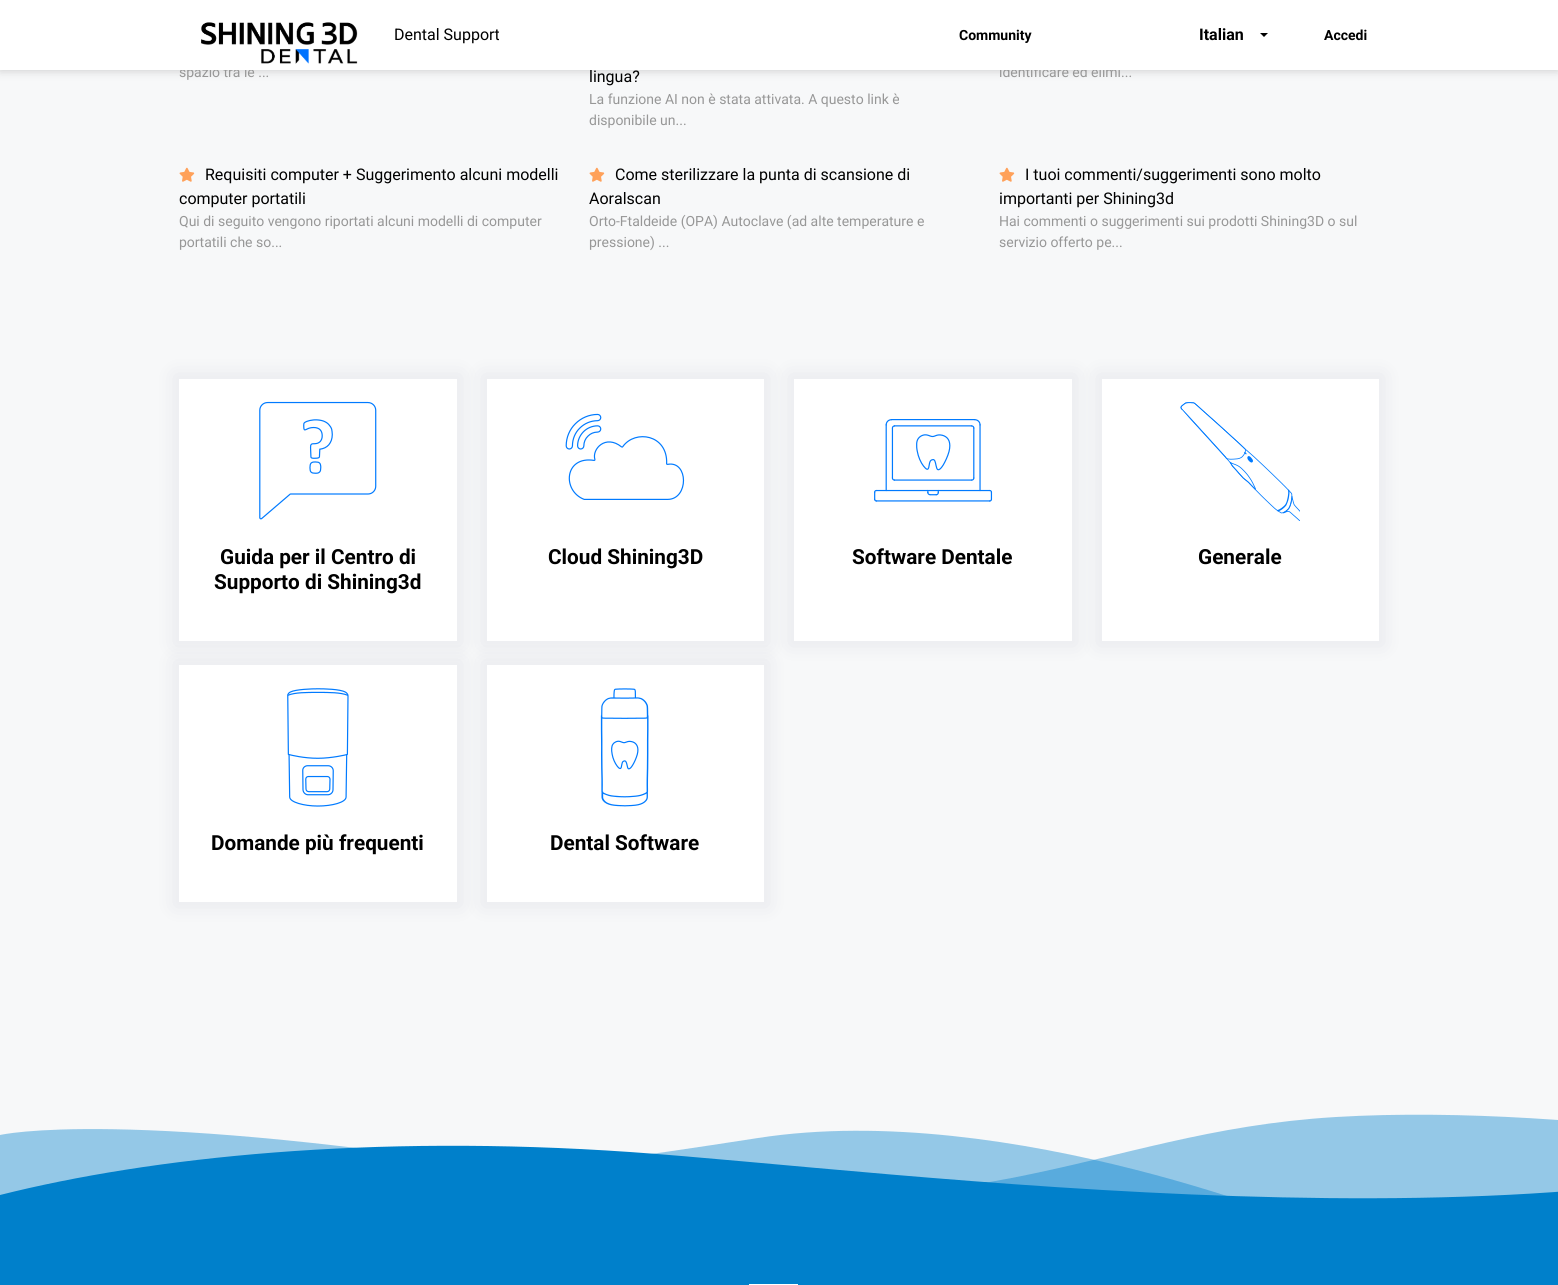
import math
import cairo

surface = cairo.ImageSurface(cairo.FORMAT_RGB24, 1558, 1285)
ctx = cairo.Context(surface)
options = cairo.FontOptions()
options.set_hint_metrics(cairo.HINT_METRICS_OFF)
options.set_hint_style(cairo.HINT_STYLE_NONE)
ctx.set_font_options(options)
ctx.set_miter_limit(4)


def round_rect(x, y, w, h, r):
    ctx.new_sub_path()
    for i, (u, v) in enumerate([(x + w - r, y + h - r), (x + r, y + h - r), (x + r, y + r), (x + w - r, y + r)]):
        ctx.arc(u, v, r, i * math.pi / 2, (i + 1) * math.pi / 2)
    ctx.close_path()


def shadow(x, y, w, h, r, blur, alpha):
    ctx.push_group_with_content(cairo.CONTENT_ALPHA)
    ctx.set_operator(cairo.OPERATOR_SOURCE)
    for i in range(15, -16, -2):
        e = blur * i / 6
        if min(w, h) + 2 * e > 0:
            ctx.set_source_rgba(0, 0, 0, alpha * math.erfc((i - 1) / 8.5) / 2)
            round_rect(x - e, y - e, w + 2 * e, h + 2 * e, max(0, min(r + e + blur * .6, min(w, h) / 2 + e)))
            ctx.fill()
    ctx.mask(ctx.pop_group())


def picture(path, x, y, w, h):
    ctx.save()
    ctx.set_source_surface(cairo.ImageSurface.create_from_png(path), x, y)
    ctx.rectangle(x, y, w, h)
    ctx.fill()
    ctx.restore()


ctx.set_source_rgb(0.965, 0.969, 0.976)
ctx.paint()
ctx.set_source_rgb(0, 0, 0)
shadow(0, 0, 1558, 70, 0, 5, 0.2)
ctx.select_font_face("Roboto")
ctx.set_font_size(14)
ctx.set_source_rgb(0.592, 0.592, 0.592)
ctx.move_to(179, 77)
ctx.show_text("spazio tra le ...")
ctx.move_to(999, 77)
ctx.show_text("identificare ed elimi...")
ctx.set_source_rgb(1, 1, 1)
ctx.rectangle(0, 0, 1558, 70)
ctx.fill()
picture("img1.png", 201, 22, 157, 42)
ctx.set_font_size(16)
ctx.set_source_rgb(0, 0, 0)
ctx.move_to(394, 40)
ctx.show_text("Dental Support")
ctx.select_font_face("Roboto", cairo.FONT_SLANT_NORMAL, cairo.FONT_WEIGHT_BOLD)
ctx.set_font_size(14)
ctx.move_to(959, 40)
ctx.show_text("Community")
ctx.set_font_size(16)
ctx.move_to(1199, 40)
ctx.show_text("Italian")
ctx.new_path()
ctx.move_to(1260, 33)
ctx.line_to(1268, 33)
ctx.line_to(1264, 37)
ctx.close_path()
ctx.fill()
ctx.set_font_size(14)
ctx.move_to(1324, 40)
ctx.show_text("Accedi")
ctx.select_font_face("Roboto")
ctx.set_font_size(16)
ctx.move_to(589, 82)
ctx.show_text("lingua?")
ctx.set_font_size(14)
ctx.set_source_rgb(0.592, 0.592, 0.592)
ctx.move_to(589, 104)
ctx.show_text("La funzione AI non è stata attivata. A questo link è")
ctx.move_to(589, 125)
ctx.show_text("disponibile un...")
picture("img2.png", 179, 167, 16, 15)
ctx.set_font_size(16)
ctx.set_source_rgb(0, 0, 0)
ctx.move_to(205, 180)
ctx.show_text("Requisiti computer + Suggerimento alcuni modelli")
ctx.move_to(179, 204)
ctx.show_text("computer portatili")
ctx.set_font_size(14)
ctx.set_source_rgb(0.592, 0.592, 0.592)
ctx.move_to(179, 226)
ctx.show_text("Qui di seguito vengono riportati alcuni modelli di computer")
ctx.move_to(179, 247)
ctx.show_text("portatili che so...")
picture("img2.png", 589, 167, 16, 15)
ctx.set_font_size(16)
ctx.set_source_rgb(0, 0, 0)
ctx.move_to(615, 180)
ctx.show_text("Come sterilizzare la punta di scansione di")
ctx.move_to(589, 204)
ctx.show_text("Aoralscan")
ctx.set_font_size(14)
ctx.set_source_rgb(0.592, 0.592, 0.592)
ctx.move_to(589, 226)
ctx.show_text("Orto-Ftaldeide (OPA) Autoclave (ad alte temperature e")
ctx.move_to(589, 247)
ctx.show_text("pressione) ...")
picture("img2.png", 999, 167, 16, 15)
ctx.set_font_size(16)
ctx.set_source_rgb(0, 0, 0)
ctx.move_to(1025, 180)
ctx.show_text("I tuoi commenti/suggerimenti sono molto")
ctx.move_to(999, 204)
ctx.show_text("importanti per Shining3d")
ctx.set_font_size(14)
ctx.set_source_rgb(0.592, 0.592, 0.592)
ctx.move_to(999, 226)
ctx.show_text("Hai commenti o suggerimenti sui prodotti Shining3D o sul")
ctx.move_to(999, 247)
ctx.show_text("servizio offerto pe...")
ctx.set_source_rgb(0.243, 0.235, 0.384)
shadow(174, 374, 288, 272, 0, 10, 0.08)
ctx.set_source_rgb(1, 1, 1)
ctx.rectangle(179, 379, 278, 262)
ctx.fill()
picture("img3.png", 259, 401, 118, 119)
ctx.select_font_face("Roboto", cairo.FONT_SLANT_NORMAL, cairo.FONT_WEIGHT_BOLD)
ctx.set_font_size(20.75)
ctx.set_source_rgb(0, 0, 0)
ctx.move_to(220, 564)
ctx.show_text("Guida per il Centro di")
ctx.move_to(214, 589)
ctx.show_text("Supporto di Shining3d")
ctx.set_source_rgb(0.243, 0.235, 0.384)
shadow(482, 374, 287, 272, 0, 10, 0.08)
ctx.set_source_rgb(1, 1, 1)
ctx.rectangle(487, 379, 277, 262)
ctx.fill()
picture("img4.png", 565, 413, 120, 87)
ctx.set_source_rgb(0, 0, 0)
ctx.move_to(548, 564)
ctx.show_text("Cloud Shining3D")
ctx.set_source_rgb(0.243, 0.235, 0.384)
shadow(789, 374, 288, 272, 0, 10, 0.08)
ctx.set_source_rgb(1, 1, 1)
ctx.rectangle(794, 379, 278, 262)
ctx.fill()
picture("img5.png", 874, 419, 119, 83)
ctx.set_source_rgb(0, 0, 0)
ctx.move_to(852, 564)
ctx.show_text("Software Dentale")
ctx.set_source_rgb(0.243, 0.235, 0.384)
shadow(1097, 374, 287, 272, 0, 10, 0.08)
ctx.set_source_rgb(1, 1, 1)
ctx.rectangle(1102, 379, 277, 262)
ctx.fill()
picture("img6.png", 1180, 402, 120, 119)
ctx.set_source_rgb(0, 0, 0)
ctx.move_to(1198, 564)
ctx.show_text("Generale")
ctx.set_source_rgb(0.243, 0.235, 0.384)
shadow(174, 660, 288, 247, 0, 10, 0.08)
ctx.set_source_rgb(1, 1, 1)
ctx.rectangle(179, 665, 278, 237)
ctx.fill()
picture("img7.png", 287, 688, 62, 119)
ctx.set_source_rgb(0, 0, 0)
ctx.move_to(211, 850)
ctx.show_text("Domande più frequenti")
ctx.set_source_rgb(0.243, 0.235, 0.384)
shadow(482, 660, 287, 247, 0, 10, 0.08)
ctx.set_source_rgb(1, 1, 1)
ctx.rectangle(487, 665, 277, 237)
ctx.fill()
picture("img8.png", 600, 688, 49, 119)
ctx.set_source_rgb(0, 0, 0)
ctx.move_to(550, 850)
ctx.show_text("Dental Software")
ctx.set_source_rgb(0, 0.502, 0.796)
ctx.rectangle(0, 1214, 1558, 71)
ctx.fill()
ctx.save()
ctx.rectangle(0, 1114, 1558, 100)
ctx.clip()
ctx.set_source_rgba(0, 0.506, 0.804, 0.4)
ctx.new_path()
ctx.move_to(-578, 1188)
ctx.curve_to(-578, 1188, -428, 1226, -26, 1208)
ctx.curve_to(377, 1190, 507, 1177, 758, 1138)
ctx.curve_to(1009, 1099, 1322, 1230, 1322, 1230)
ctx.line_to(1322, 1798)
ctx.line_to(-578, 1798)
ctx.close_path()
ctx.fill()
ctx.new_path()
ctx.move_to(0, 1135)
ctx.curve_to(0, 1135, 122, 1106, 552, 1176)
ctx.curve_to(983, 1245, 1085, 1132, 1336, 1117)
ctx.curve_to(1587, 1102, 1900, 1165, 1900, 1165)
ctx.line_to(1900, 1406)
ctx.line_to(0, 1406)
ctx.close_path()
ctx.fill()
ctx.set_source_rgb(0, 0.502, 0.796)
ctx.new_path()
ctx.move_to(0, 1195)
ctx.curve_to(151, 1157, 370, 1134, 630, 1152)
ctx.curve_to(890, 1170, 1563, 1261, 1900, 1124)
ctx.line_to(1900, 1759)
ctx.line_to(0, 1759)
ctx.close_path()
ctx.fill()
ctx.restore()
gradient = cairo.LinearGradient(802, 1277, 757, 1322)
gradient.add_color_stop_rgba(0.13, 0, 0.502, 0.796, 1)
gradient.add_color_stop_rgba(0.13, 1, 1, 1, 1)
ctx.set_source(gradient)
ctx.new_path()
ctx.move_to(749, 1284)
ctx.line_to(749, 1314)
ctx.line_to(809, 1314)
ctx.line_to(809, 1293)
ctx.line_to(803, 1284)
ctx.close_path()
ctx.fill()
surface.write_to_png("page.png")
